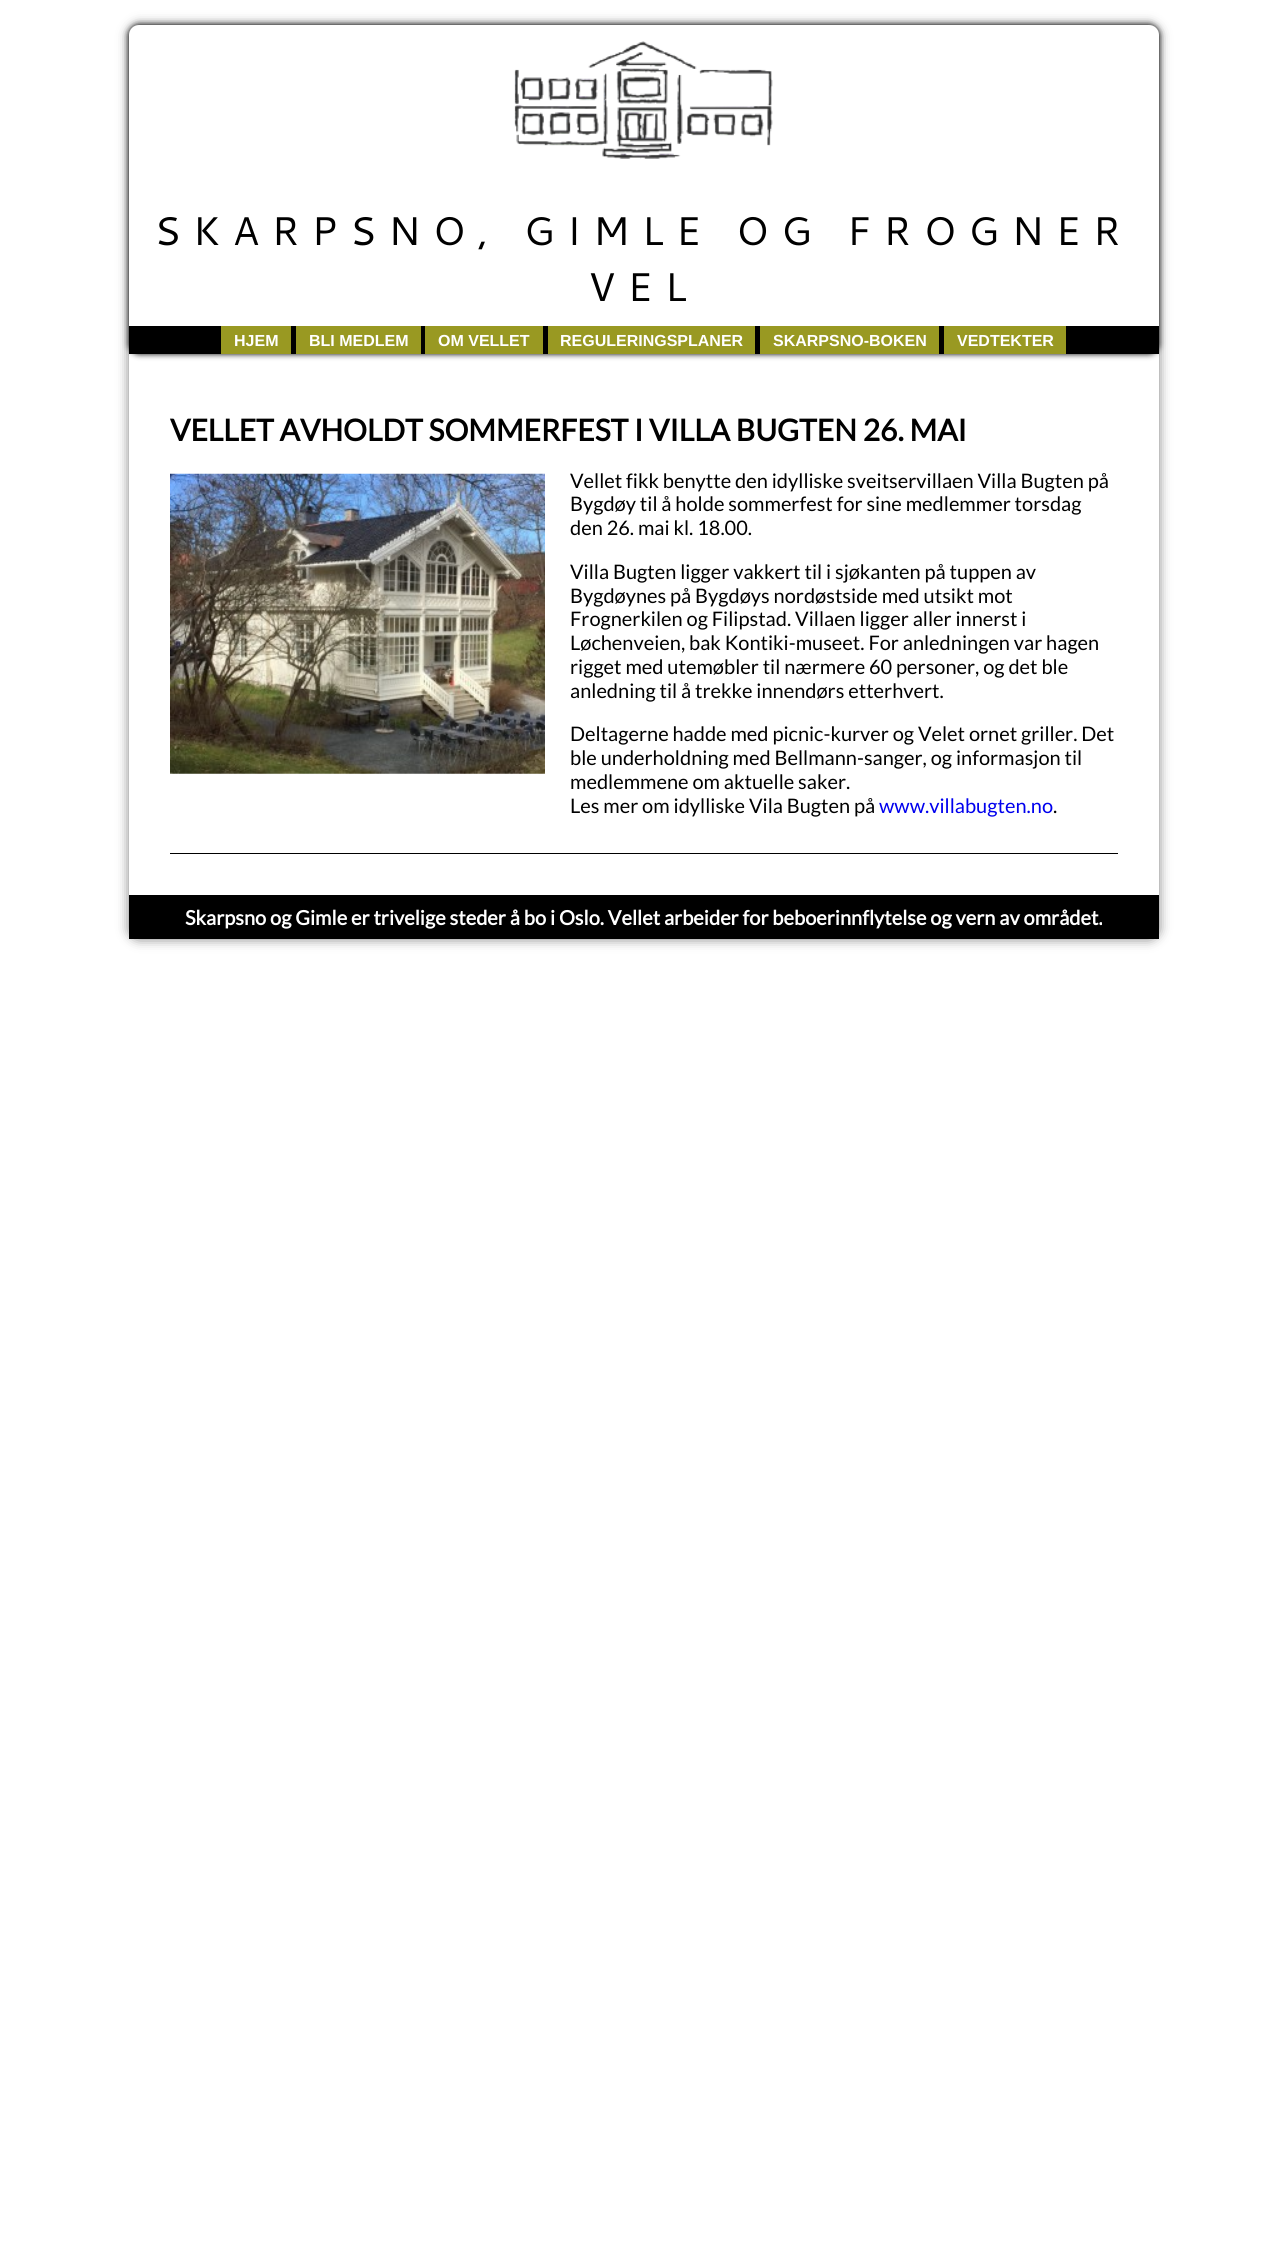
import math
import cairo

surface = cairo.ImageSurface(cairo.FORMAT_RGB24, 1287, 2250)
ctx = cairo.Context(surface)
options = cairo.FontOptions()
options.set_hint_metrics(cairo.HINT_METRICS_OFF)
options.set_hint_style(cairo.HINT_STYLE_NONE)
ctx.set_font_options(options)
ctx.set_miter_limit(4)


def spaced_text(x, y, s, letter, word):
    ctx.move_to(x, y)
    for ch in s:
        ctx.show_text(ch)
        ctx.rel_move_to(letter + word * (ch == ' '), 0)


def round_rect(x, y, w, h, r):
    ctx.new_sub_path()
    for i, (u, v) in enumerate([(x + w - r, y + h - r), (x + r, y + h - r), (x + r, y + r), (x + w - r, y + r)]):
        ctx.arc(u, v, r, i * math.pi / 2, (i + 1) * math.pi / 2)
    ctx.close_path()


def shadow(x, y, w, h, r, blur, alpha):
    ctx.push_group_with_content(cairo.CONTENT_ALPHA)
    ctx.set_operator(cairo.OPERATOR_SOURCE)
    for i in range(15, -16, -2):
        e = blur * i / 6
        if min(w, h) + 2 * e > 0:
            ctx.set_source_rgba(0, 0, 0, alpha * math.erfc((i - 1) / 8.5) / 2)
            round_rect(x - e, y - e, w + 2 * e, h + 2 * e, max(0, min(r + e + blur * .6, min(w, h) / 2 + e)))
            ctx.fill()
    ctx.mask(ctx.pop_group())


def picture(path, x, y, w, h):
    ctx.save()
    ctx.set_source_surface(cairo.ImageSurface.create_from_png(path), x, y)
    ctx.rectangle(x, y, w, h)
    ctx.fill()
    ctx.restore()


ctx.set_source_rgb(1, 1, 1)
ctx.paint()
ctx.set_source_rgb(0.502, 0.502, 0.502)
shadow(129, 25, 1030, 914, 10, 6, 1)
ctx.set_source_rgb(1, 1, 1)
round_rect(129, 25, 1030, 914, 10)
ctx.fill()
ctx.set_source_rgb(0, 0, 0)
shadow(129, 25, 1030, 329, 10, 3, 1)
ctx.set_source_rgb(1, 1, 1)
ctx.new_path()
ctx.move_to(139, 25)
ctx.line_to(1149, 25)
ctx.curve_to(1154.5, 25, 1159, 29.5, 1159, 35)
ctx.line_to(1159, 354)
ctx.line_to(129, 354)
ctx.line_to(129, 35)
ctx.curve_to(129, 29.5, 133.5, 25, 139, 25)
ctx.close_path()
ctx.fill()
picture("img1.png", 514, 41, 259, 118)
ctx.select_font_face("Cantarell")
ctx.set_font_size(40)
ctx.set_source_rgb(0, 0, 0)
spaced_text(154, 245, "SKARPSNO, GIMLE OG FROGNER", 12, 0)
spaced_text(588, 301, "VEL", 12, 0)
ctx.rectangle(129, 326, 1030, 28)
ctx.fill()
ctx.set_source_rgb(0.6, 0.6, 0.133)
ctx.rectangle(221, 326, 70, 28)
ctx.fill()
ctx.select_font_face("Liberation Sans", cairo.FONT_SLANT_NORMAL, cairo.FONT_WEIGHT_BOLD)
ctx.set_font_size(16)
ctx.set_source_rgb(1, 1, 1)
ctx.move_to(234, 346)
ctx.show_text("HJEM")
ctx.set_source_rgb(0.6, 0.6, 0.133)
ctx.rectangle(296, 326, 125, 28)
ctx.fill()
ctx.set_source_rgb(1, 1, 1)
ctx.move_to(309, 346)
ctx.show_text("BLI MEDLEM")
ctx.set_source_rgb(0.6, 0.6, 0.133)
ctx.rectangle(425, 326, 118, 28)
ctx.fill()
ctx.set_source_rgb(1, 1, 1)
ctx.move_to(438, 346)
ctx.show_text("OM VELLET")
ctx.set_source_rgb(0.6, 0.6, 0.133)
ctx.rectangle(548, 326, 207, 28)
ctx.fill()
ctx.set_source_rgb(1, 1, 1)
ctx.move_to(560, 346)
ctx.show_text("REGULERINGSPLANER")
ctx.set_source_rgb(0.6, 0.6, 0.133)
ctx.rectangle(760, 326, 179, 28)
ctx.fill()
ctx.set_source_rgb(1, 1, 1)
ctx.move_to(773, 346)
ctx.show_text("SKARPSNO-BOKEN")
ctx.set_source_rgb(0.6, 0.6, 0.133)
ctx.rectangle(944, 326, 122, 28)
ctx.fill()
ctx.set_source_rgb(1, 1, 1)
ctx.move_to(957, 346)
ctx.show_text("VEDTEKTER")
ctx.set_source_rgb(0, 0, 0)
ctx.rectangle(170, 853, 948, 1)
ctx.fill()
ctx.select_font_face("Lato", cairo.FONT_SLANT_NORMAL, cairo.FONT_WEIGHT_BOLD)
ctx.set_font_size(30)
ctx.move_to(170, 441)
ctx.show_text("VELLET AVHOLDT SOMMERFEST I VILLA BUGTEN 26. MAI")
picture("img2.png", 170, 473, 375, 301)
ctx.select_font_face("Lato")
ctx.set_font_size(20)
ctx.move_to(570, 488)
ctx.show_text("Vellet fikk benytte den idylliske sveitservillaen Villa Bugten på")
ctx.move_to(570, 511)
ctx.show_text("Bygdøy til å holde sommerfest for sine medlemmer torsdag")
ctx.move_to(570, 535)
ctx.show_text("den 26. mai kl. 18.00.")
ctx.move_to(570, 579)
ctx.show_text("Villa Bugten ligger vakkert til i sjøkanten på tuppen av")
ctx.move_to(570, 603)
ctx.show_text("Bygdøynes på Bygdøys nordøstside med utsikt mot")
ctx.move_to(570, 626)
ctx.show_text("Frognerkilen og Filipstad. Villaen ligger aller innerst i")
ctx.move_to(570, 650)
ctx.show_text("Løchenveien, bak Kontiki-museet. For anledningen var hagen")
ctx.move_to(570, 674)
ctx.show_text("rigget med utemøbler til nærmere 60 personer, og det ble")
ctx.move_to(570, 698)
ctx.show_text("anledning til å trekke innendørs etterhvert.")
ctx.move_to(570, 741)
ctx.show_text("Deltagerne hadde med picnic-kurver og Velet ornet griller. Det")
ctx.move_to(570, 765)
ctx.show_text("ble underholdning med Bellmann-sanger, og informasjon til")
ctx.move_to(570, 789)
ctx.show_text("medlemmene om aktuelle saker.")
ctx.move_to(570, 813)
ctx.show_text("Les mer om idylliske Vila Bugten på")
ctx.set_source_rgb(0, 0, 0.933)
ctx.move_to(879, 813)
ctx.show_text("www.villabugten.no")
ctx.set_source_rgb(0, 0, 0)
ctx.move_to(1053, 813)
ctx.show_text(".")
ctx.rectangle(129, 895, 1030, 44)
ctx.fill()
ctx.select_font_face("Lato", cairo.FONT_SLANT_NORMAL, cairo.FONT_WEIGHT_BOLD)
ctx.set_source_rgb(1, 1, 1)
ctx.move_to(185, 925)
ctx.show_text("Skarpsno og Gimle er trivelige steder å bo i Oslo. Vellet arbeider for beboerinnflytelse og vern av området.")
surface.write_to_png("page.png")
